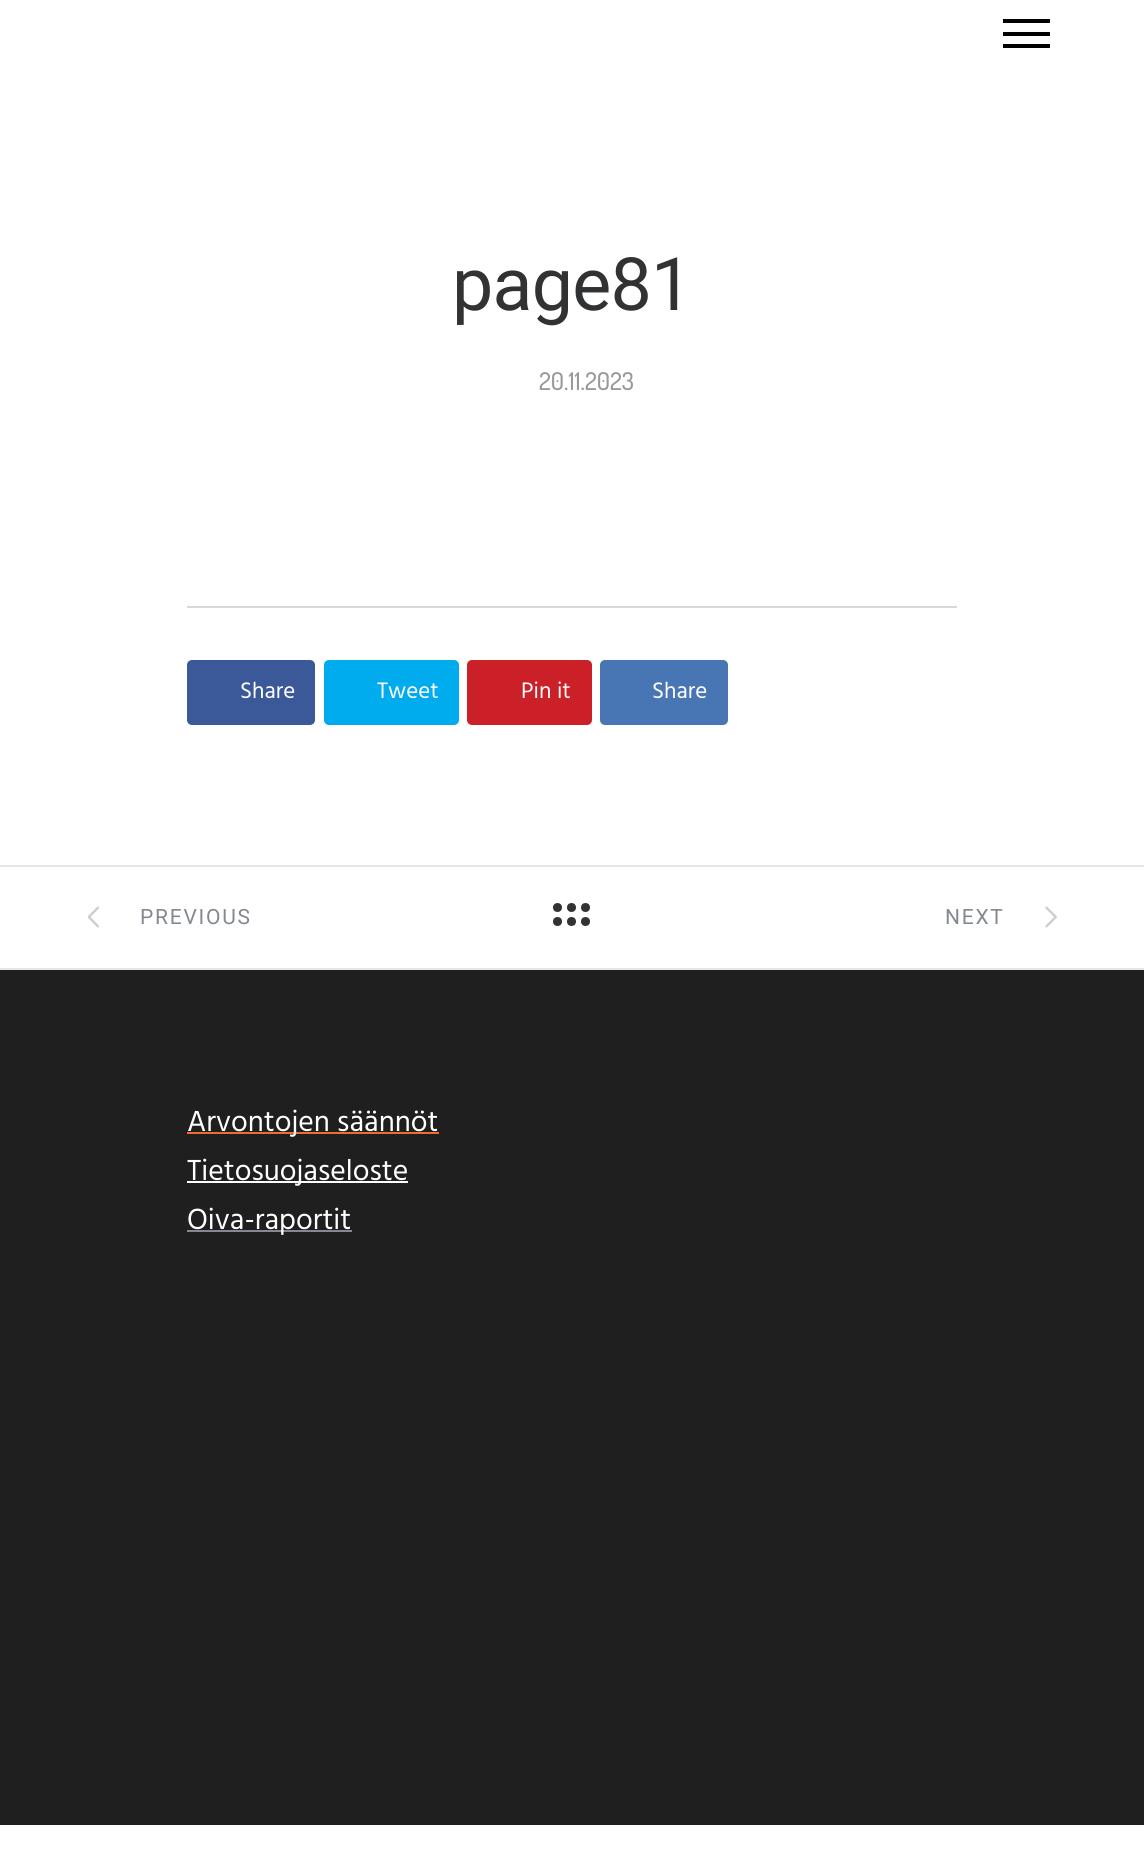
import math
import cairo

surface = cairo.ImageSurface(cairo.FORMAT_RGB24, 1144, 1858)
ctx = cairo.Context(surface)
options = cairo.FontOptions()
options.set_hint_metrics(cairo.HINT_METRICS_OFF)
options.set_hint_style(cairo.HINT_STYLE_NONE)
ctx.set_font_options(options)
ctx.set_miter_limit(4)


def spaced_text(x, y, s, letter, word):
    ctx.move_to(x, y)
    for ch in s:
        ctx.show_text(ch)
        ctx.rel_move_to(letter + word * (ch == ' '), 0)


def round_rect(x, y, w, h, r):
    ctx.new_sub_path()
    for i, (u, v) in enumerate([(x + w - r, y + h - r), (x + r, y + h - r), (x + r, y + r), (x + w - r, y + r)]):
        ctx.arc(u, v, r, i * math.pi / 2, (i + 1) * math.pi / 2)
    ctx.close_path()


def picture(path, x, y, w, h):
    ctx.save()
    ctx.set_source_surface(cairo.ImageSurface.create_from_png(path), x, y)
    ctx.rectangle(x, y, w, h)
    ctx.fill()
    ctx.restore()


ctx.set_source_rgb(1, 1, 1)
ctx.paint()
ctx.set_source_rgb(0, 0, 0)
ctx.rectangle(1003, 19, 47, 4)
ctx.fill()
ctx.rectangle(1003, 32, 47, 4)
ctx.fill()
ctx.rectangle(1003, 44, 47, 4)
ctx.fill()
ctx.select_font_face("Roboto")
ctx.set_font_size(73.5)
ctx.set_source_rgb(0.192, 0.196, 0.2)
spaced_text(452, 310, "page81", -0.75, 0)
ctx.select_font_face("Dosis Medium")
ctx.set_font_size(24.5)
ctx.set_source_rgb(0.596, 0.6, 0.6)
ctx.move_to(539, 390)
ctx.show_text("20.11.2023")
ctx.set_source_rgb(0.847, 0.847, 0.847)
ctx.rectangle(187, 606, 770, 2)
ctx.fill()
ctx.set_source_rgb(0.231, 0.349, 0.596)
round_rect(187, 660, 128, 65, 5)
ctx.fill()
ctx.select_font_face("Hind")
ctx.set_font_size(23)
ctx.set_source_rgb(1, 1, 1)
ctx.move_to(240, 698)
ctx.show_text("Share")
ctx.set_source_rgb(0, 0.675, 0.929)
round_rect(324, 660, 135, 65, 5)
ctx.fill()
ctx.set_source_rgb(1, 1, 1)
ctx.move_to(377, 698)
ctx.show_text("Tweet")
ctx.set_source_rgb(0.796, 0.125, 0.153)
round_rect(467, 660, 125, 65, 5)
ctx.fill()
ctx.set_source_rgb(1, 1, 1)
ctx.move_to(521, 698)
ctx.show_text("Pin it")
ctx.set_source_rgb(0.282, 0.459, 0.706)
round_rect(600, 660, 128, 65, 5)
ctx.fill()
ctx.set_source_rgb(1, 1, 1)
ctx.move_to(652, 698)
ctx.show_text("Share")
ctx.set_source_rgb(0.902, 0.902, 0.902)
ctx.rectangle(0, 865, 1144, 2)
ctx.fill()
ctx.rectangle(0, 968, 1144, 2)
ctx.fill()
picture("img1.png", 88, 906, 11, 22)
ctx.select_font_face("Roboto")
ctx.set_font_size(21)
ctx.set_source_rgb(0.518, 0.537, 0.569)
spaced_text(140, 924, "PREVIOUS", 1.75, 0)
ctx.set_source_rgb(0.192, 0.196, 0.2)
ctx.new_path()
ctx.arc(557.5, 907.5, 4.5, 0, 2 * math.pi)
ctx.fill()
ctx.arc(571.5, 907.5, 4.5, 0, 2 * math.pi)
ctx.fill()
ctx.arc(585.5, 907.5, 4.5, 0, 2 * math.pi)
ctx.fill()
ctx.arc(557.5, 921.5, 4.5, 0, 2 * math.pi)
ctx.fill()
ctx.arc(571.5, 921.5, 4.5, 0, 2 * math.pi)
ctx.fill()
ctx.arc(585.5, 921.5, 4.5, 0, 2 * math.pi)
ctx.fill()
ctx.set_source_rgb(0.518, 0.537, 0.569)
spaced_text(945, 924, "NEXT", 1.75, 0)
picture("img2.png", 1045, 906, 12, 22)
ctx.set_source_rgb(0.122, 0.122, 0.122)
ctx.rectangle(0, 970, 1144, 855)
ctx.fill()
ctx.set_source_rgb(0.953, 0.42, 0.204)
ctx.rectangle(187, 1132, 252, 2)
ctx.fill()
ctx.select_font_face("Hind")
ctx.set_font_size(29.75)
ctx.set_source_rgb(1, 1, 1)
ctx.move_to(187, 1131)
ctx.show_text("Arvontojen säännöt")
ctx.rectangle(187, 1181, 221, 2)
ctx.fill()
ctx.move_to(187, 1180)
ctx.show_text("Tietosuojaseloste")
ctx.set_source_rgb(0.518, 0.537, 0.569)
ctx.rectangle(187, 1230, 165, 2)
ctx.fill()
ctx.set_source_rgb(1, 1, 1)
ctx.move_to(187, 1229)
ctx.show_text("Oiva-raportit")
surface.write_to_png("page.png")
